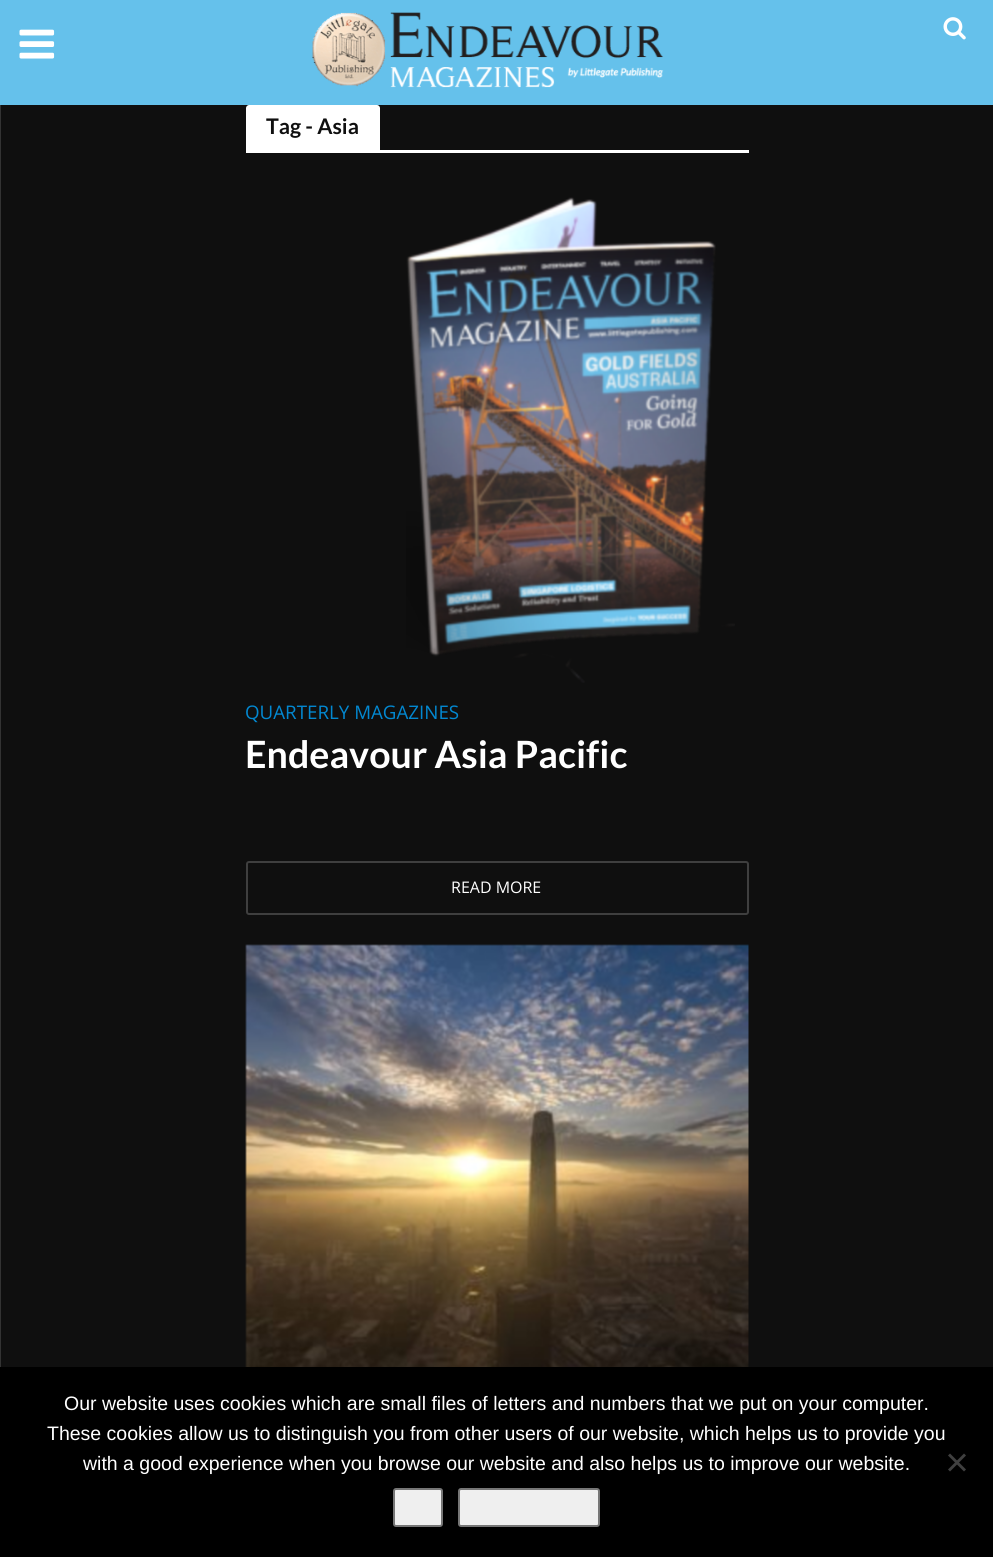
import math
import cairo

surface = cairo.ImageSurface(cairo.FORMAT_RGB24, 993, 1557)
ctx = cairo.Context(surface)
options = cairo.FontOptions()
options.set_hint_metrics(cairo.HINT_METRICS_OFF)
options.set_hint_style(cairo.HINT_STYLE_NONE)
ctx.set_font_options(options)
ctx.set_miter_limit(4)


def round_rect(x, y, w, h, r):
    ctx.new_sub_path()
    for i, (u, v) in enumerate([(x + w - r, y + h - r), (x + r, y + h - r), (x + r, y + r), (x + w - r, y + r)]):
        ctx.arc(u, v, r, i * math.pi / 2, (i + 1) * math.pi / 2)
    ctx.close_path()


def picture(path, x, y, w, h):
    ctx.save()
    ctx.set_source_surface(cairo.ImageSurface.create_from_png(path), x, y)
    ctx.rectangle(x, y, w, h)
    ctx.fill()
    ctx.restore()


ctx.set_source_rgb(0.059, 0.059, 0.059)
ctx.paint()
ctx.set_source_rgb(0.396, 0.757, 0.918)
ctx.rectangle(0, 0, 993, 105)
ctx.fill()
picture("img1.png", 19, 29, 36, 30)
picture("img2.png", 312, 12, 352, 76)
picture("img3.png", 943, 17, 23, 23)
ctx.set_source_rgb(0.2, 0.2, 0.2)
ctx.rectangle(0, 105, 1, 1262)
ctx.fill()
ctx.set_source_rgb(1, 1, 1)
ctx.new_path()
ctx.move_to(249, 105)
ctx.line_to(377, 105)
ctx.curve_to(378.5, 105, 380, 106.5, 380, 108)
ctx.line_to(380, 150)
ctx.line_to(246, 150)
ctx.line_to(246, 108)
ctx.curve_to(246, 106.5, 247.5, 105, 249, 105)
ctx.close_path()
ctx.fill()
ctx.select_font_face("Lato", cairo.FONT_SLANT_NORMAL, cairo.FONT_WEIGHT_BOLD)
ctx.set_font_size(21.5)
ctx.set_source_rgb(0.059, 0.059, 0.059)
ctx.move_to(266, 134)
ctx.show_text("Tag - Asia")
ctx.set_source_rgb(1, 1, 1)
ctx.rectangle(246, 150, 503, 3)
ctx.fill()
picture("img4.png", 406, 197, 329, 486)
ctx.select_font_face("Open Sans")
ctx.set_font_size(18.75)
ctx.set_source_rgb(0.008, 0.533, 0.82)
ctx.move_to(245, 719)
ctx.show_text("QUARTERLY MAGAZINES")
ctx.select_font_face("Lato", cairo.FONT_SLANT_NORMAL, cairo.FONT_WEIGHT_BOLD)
ctx.set_font_size(37.6)
ctx.set_source_rgb(1, 1, 1)
ctx.move_to(245, 768)
ctx.show_text("Endeavour Asia Pacific")
round_rect(247, 862, 501, 52, 2)
ctx.set_source_rgb(0.247, 0.247, 0.247)
ctx.stroke()
ctx.select_font_face("Open Sans")
ctx.set_font_size(16)
ctx.set_source_rgb(1, 1, 1)
ctx.move_to(451, 893)
ctx.show_text("READ MORE")
picture("img5.png", 245, 944, 504, 423)
ctx.set_source_rgb(0, 0, 0)
ctx.rectangle(0, 1367, 993, 190)
ctx.fill()
ctx.select_font_face("Liberation Sans")
ctx.set_font_size(19.5)
ctx.set_source_rgb(1, 1, 1)
ctx.move_to(64, 1410)
ctx.show_text("Our website uses cookies which are small files of letters and numbers that we put on your computer.")
ctx.move_to(47, 1440)
ctx.show_text("These cookies allow us to distinguish you from other users of our website, which helps us to provide you")
ctx.move_to(83, 1470)
ctx.show_text("with a good experience when you browse our website and also helps us to improve our website.")
ctx.set_source_rgb(0.251, 0.251, 0.251)
ctx.new_path()
ctx.move_to(964, 1453.5)
ctx.line_to(966, 1455.5)
ctx.line_to(950, 1471.5)
ctx.line_to(948, 1469.5)
ctx.close_path()
ctx.fill()
ctx.new_path()
ctx.move_to(948, 1455.5)
ctx.line_to(950, 1453.5)
ctx.line_to(966, 1469.5)
ctx.line_to(964, 1471.5)
ctx.close_path()
ctx.fill()
ctx.set_source_rgb(0.937, 0.937, 0.937)
round_rect(394, 1489, 48, 37, 2)
ctx.fill_preserve()
ctx.set_source_rgb(0.463, 0.463, 0.463)
ctx.stroke()
ctx.set_source_rgb(0.937, 0.937, 0.937)
round_rect(459, 1489, 140, 37, 2)
ctx.fill_preserve()
ctx.set_source_rgb(0.463, 0.463, 0.463)
ctx.stroke()
surface.write_to_png("page.png")
